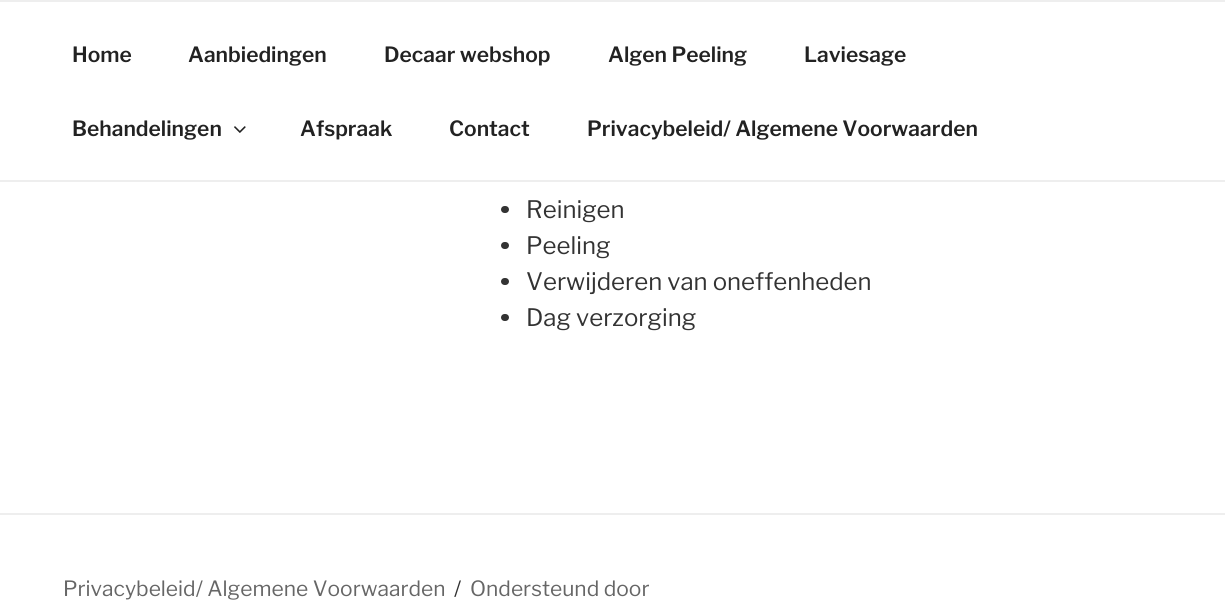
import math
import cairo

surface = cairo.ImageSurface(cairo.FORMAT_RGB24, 1225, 614)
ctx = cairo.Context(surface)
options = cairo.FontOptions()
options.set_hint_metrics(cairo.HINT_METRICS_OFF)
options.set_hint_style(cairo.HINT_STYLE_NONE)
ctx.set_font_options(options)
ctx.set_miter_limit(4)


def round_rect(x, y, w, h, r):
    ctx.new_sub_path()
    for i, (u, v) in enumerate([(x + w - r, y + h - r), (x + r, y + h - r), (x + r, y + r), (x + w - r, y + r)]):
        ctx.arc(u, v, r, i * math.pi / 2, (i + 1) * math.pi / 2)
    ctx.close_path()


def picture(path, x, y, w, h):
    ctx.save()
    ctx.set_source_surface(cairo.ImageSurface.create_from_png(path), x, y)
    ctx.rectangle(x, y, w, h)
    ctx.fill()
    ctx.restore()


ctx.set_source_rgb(1, 1, 1)
ctx.paint()
ctx.set_source_rgb(0.933, 0.933, 0.933)
ctx.rectangle(0, 0, 1225, 2)
ctx.fill()
ctx.rectangle(0, 180, 1225, 2)
ctx.fill()
ctx.select_font_face("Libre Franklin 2 Thin")
ctx.set_font_size(21)
ctx.set_source_rgb(0.133, 0.133, 0.133)
ctx.move_to(72, 62)
ctx.show_text("Home")
ctx.move_to(188, 62)
ctx.show_text("Aanbiedingen")
ctx.move_to(384, 62)
ctx.show_text("Decaar webshop")
ctx.move_to(608, 62)
ctx.show_text("Algen Peeling")
ctx.move_to(804, 62)
ctx.show_text("Laviesage")
ctx.move_to(72, 136)
ctx.show_text("Behandelingen")
picture("img1.png", 234, 126, 12, 7)
ctx.move_to(300, 136)
ctx.show_text("Afspraak")
ctx.move_to(449, 136)
ctx.show_text("Contact")
ctx.move_to(587, 136)
ctx.show_text("Privacybeleid/ Algemene Voorwaarden")
ctx.set_source_rgb(0.2, 0.2, 0.2)
round_rect(501, 206, 8, 7, 3.5)
ctx.fill()
ctx.select_font_face("Libre Franklin Thin")
ctx.set_font_size(24)
ctx.move_to(526, 218)
ctx.show_text("Reinigen")
round_rect(501, 242, 8, 7, 3.5)
ctx.fill()
ctx.move_to(526, 254)
ctx.show_text("Peeling")
round_rect(501, 278, 8, 7, 3.5)
ctx.fill()
ctx.move_to(526, 290)
ctx.show_text("Verwijderen van oneffenheden")
round_rect(501, 314, 8, 7, 3.5)
ctx.fill()
ctx.move_to(526, 326)
ctx.show_text("Dag verzorging")
ctx.set_source_rgb(0.933, 0.933, 0.933)
ctx.rectangle(0, 513, 1225, 2)
ctx.fill()
ctx.set_font_size(21)
ctx.set_source_rgb(0.4, 0.4, 0.4)
ctx.move_to(63, 596)
ctx.show_text("Privacybeleid/ Algemene Voorwaarden")
ctx.set_source_rgb(0.2, 0.2, 0.2)
ctx.move_to(454, 596)
ctx.show_text("/")
ctx.set_source_rgb(0.4, 0.4, 0.4)
ctx.move_to(470, 596)
ctx.show_text("Ondersteund door")
surface.write_to_png("page.png")
